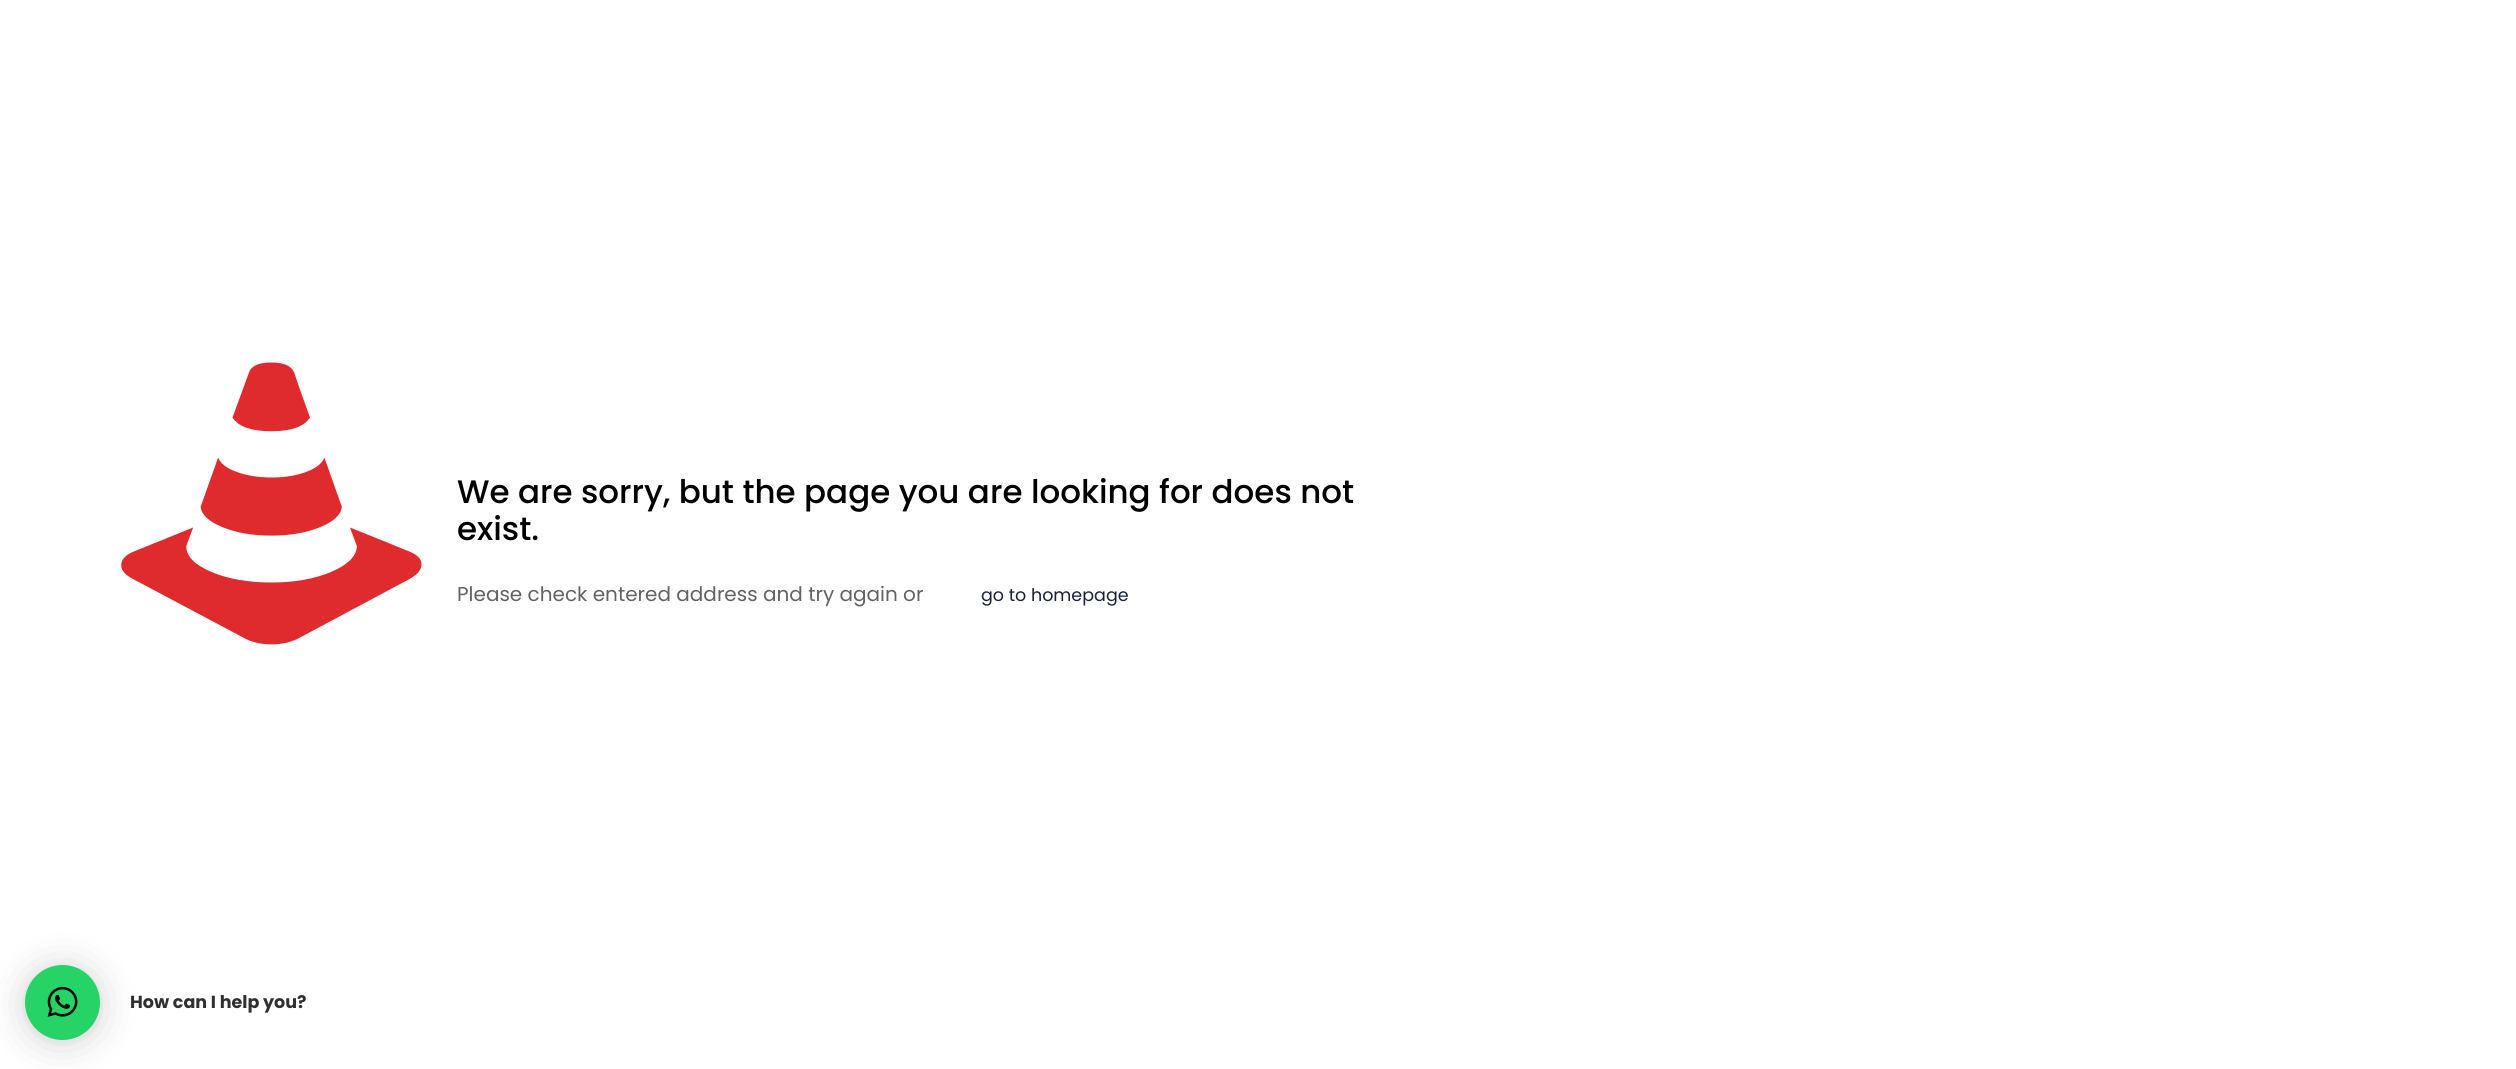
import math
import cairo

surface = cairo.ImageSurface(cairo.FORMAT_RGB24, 2516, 1069)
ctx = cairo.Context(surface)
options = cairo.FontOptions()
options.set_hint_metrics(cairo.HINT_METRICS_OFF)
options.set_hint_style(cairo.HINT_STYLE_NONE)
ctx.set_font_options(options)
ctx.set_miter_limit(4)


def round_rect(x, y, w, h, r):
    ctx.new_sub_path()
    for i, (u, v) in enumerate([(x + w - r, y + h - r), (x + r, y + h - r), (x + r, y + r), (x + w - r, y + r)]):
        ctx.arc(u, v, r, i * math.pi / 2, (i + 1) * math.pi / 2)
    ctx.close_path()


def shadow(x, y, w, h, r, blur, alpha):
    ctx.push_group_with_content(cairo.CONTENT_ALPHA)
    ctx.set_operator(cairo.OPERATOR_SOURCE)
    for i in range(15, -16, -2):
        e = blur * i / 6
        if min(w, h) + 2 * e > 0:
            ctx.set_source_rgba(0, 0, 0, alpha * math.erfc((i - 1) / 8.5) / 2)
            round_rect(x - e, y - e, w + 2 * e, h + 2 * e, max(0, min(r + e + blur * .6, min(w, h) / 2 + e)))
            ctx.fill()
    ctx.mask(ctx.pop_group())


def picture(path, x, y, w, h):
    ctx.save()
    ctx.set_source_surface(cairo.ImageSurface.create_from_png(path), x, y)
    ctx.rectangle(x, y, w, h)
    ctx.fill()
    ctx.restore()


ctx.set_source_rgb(1, 1, 1)
ctx.paint()
picture("img1.png", 121, 362, 301, 283)
ctx.select_font_face("Poppins Medium")
ctx.set_font_size(32.5)
ctx.set_source_rgb(0, 0, 0)
ctx.move_to(457, 503)
ctx.show_text("We are sorry, but the page you are looking for does not")
ctx.move_to(457, 540)
ctx.show_text("exist.")
ctx.select_font_face("Poppins")
ctx.set_font_size(20)
ctx.set_source_rgb(0.384, 0.384, 0.384)
ctx.move_to(457, 601)
ctx.show_text("Please check entered address and try again or")
ctx.set_font_size(17.5)
ctx.set_source_rgb(0.086, 0.129, 0.247)
ctx.move_to(981, 601)
ctx.show_text("go to homepage")
ctx.set_source_rgb(0, 0, 0)
shadow(25, 968, 75, 75, 37.5, 20, 0.16)
shadow(25, 966, 75, 75, 37.5, 4, 0.06)
ctx.set_source_rgb(0.145, 0.827, 0.4)
ctx.arc(62.5, 1002.5, 37.5, 0, 2 * math.pi)
ctx.fill()
picture("img2.png", 47, 986, 31, 31)
ctx.select_font_face("Poppins", cairo.FONT_SLANT_NORMAL, cairo.FONT_WEIGHT_BOLD)
ctx.set_source_rgb(0.188, 0.188, 0.188)
ctx.move_to(130, 1008)
ctx.show_text("How can I help you?")
surface.write_to_png("page.png")
